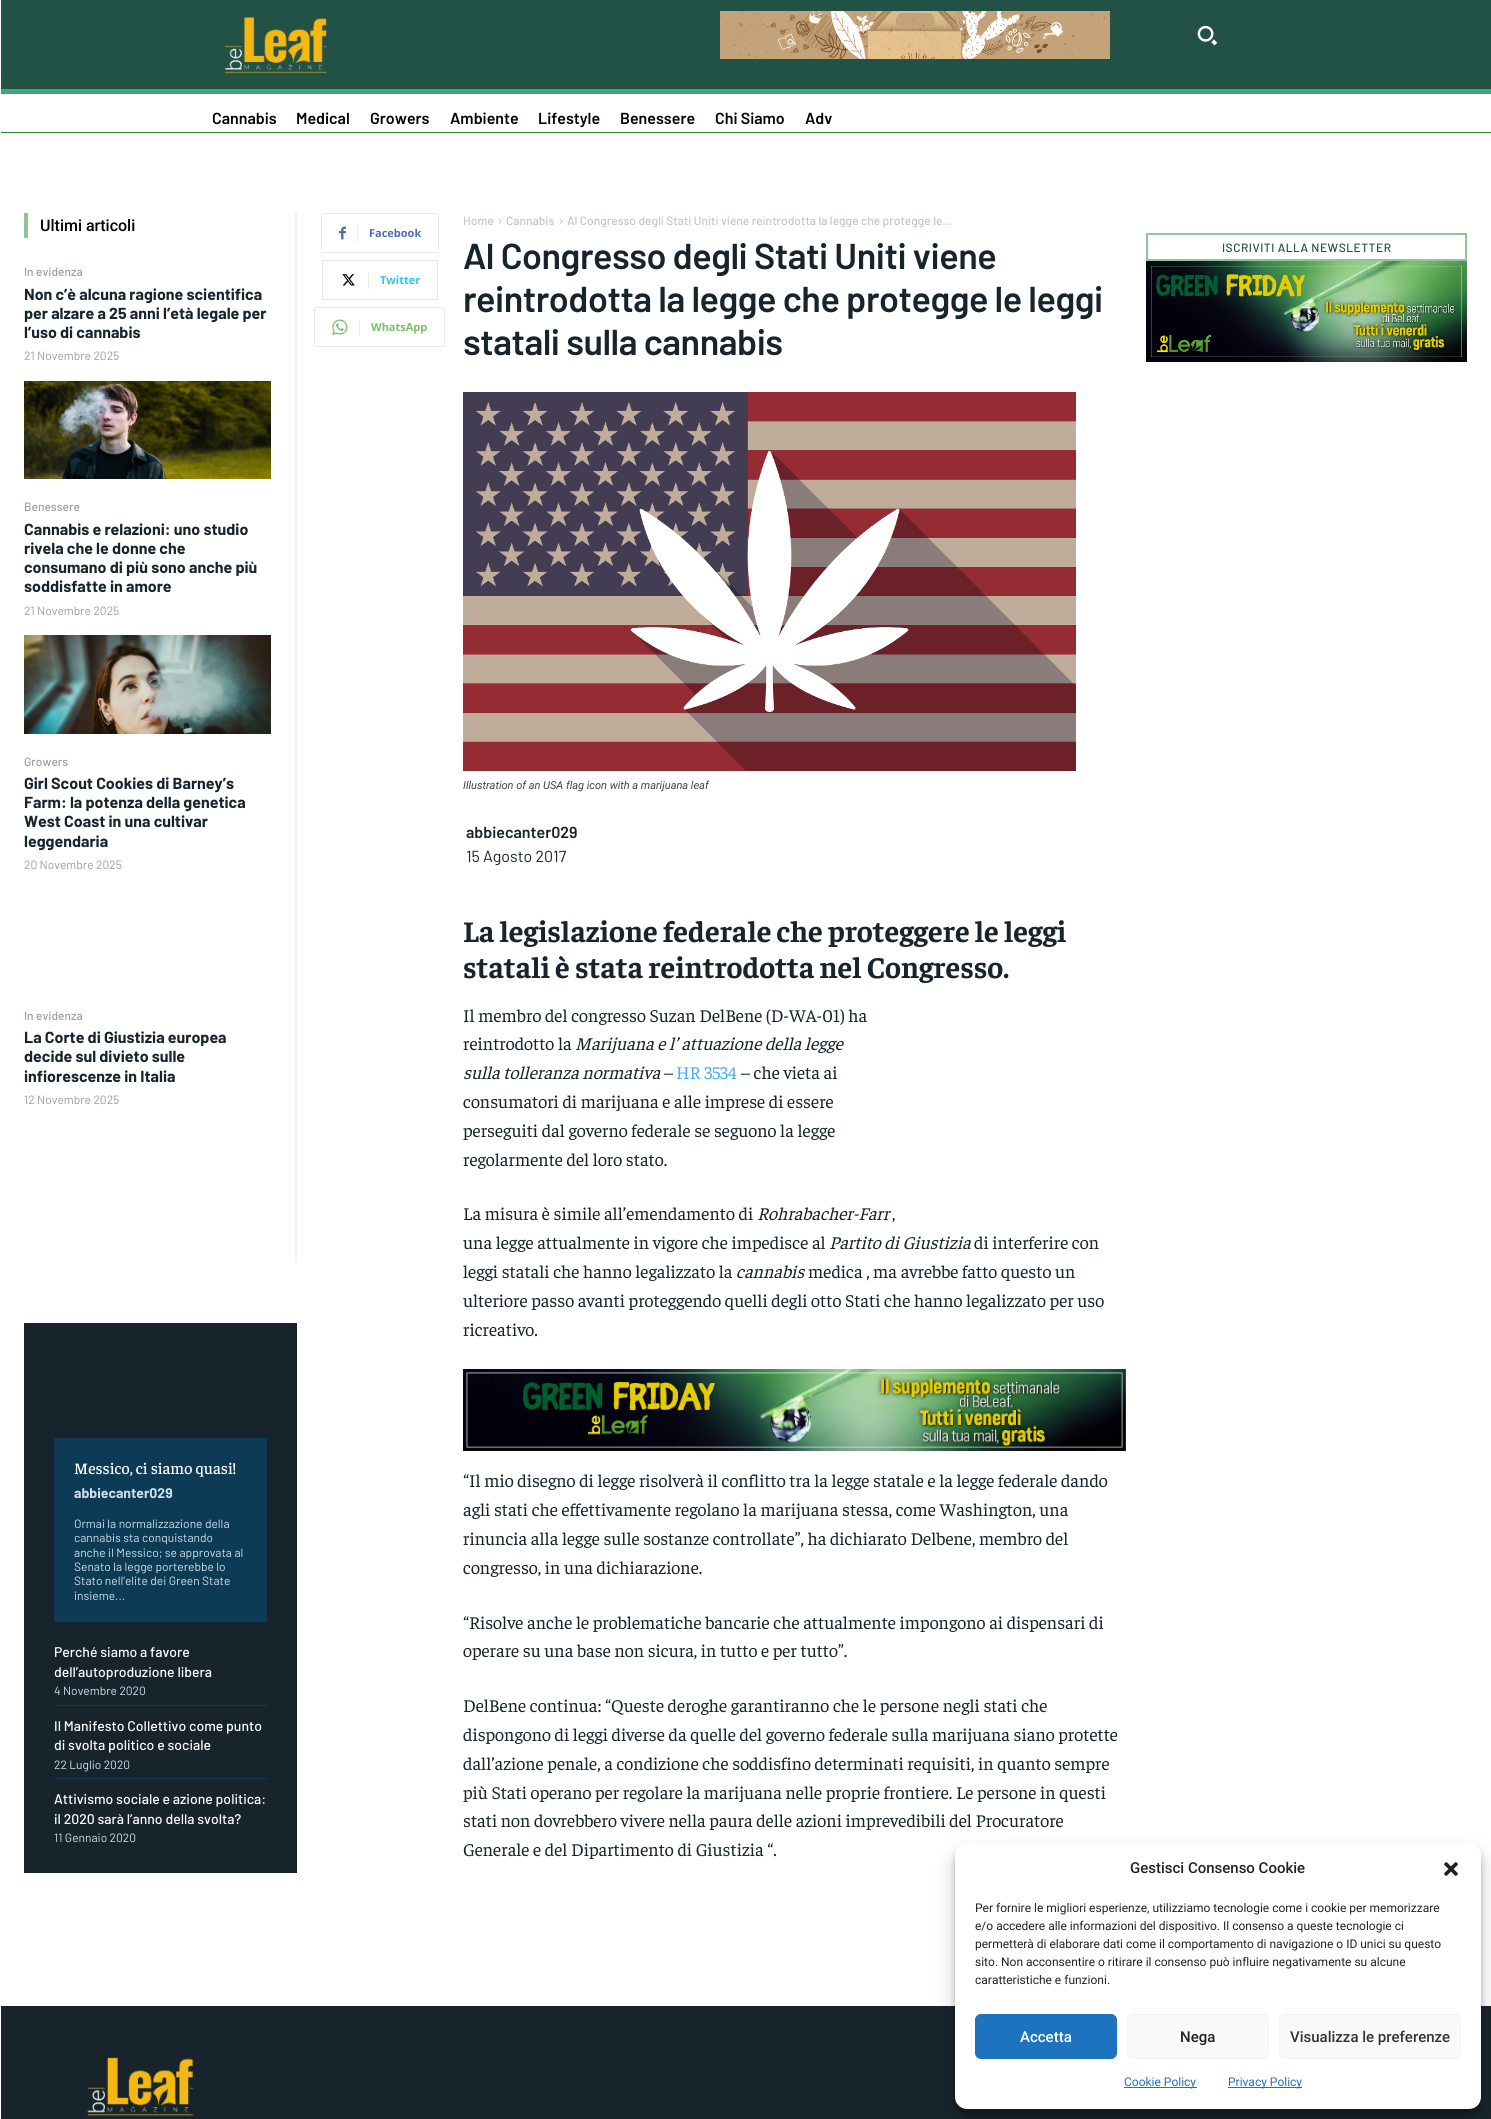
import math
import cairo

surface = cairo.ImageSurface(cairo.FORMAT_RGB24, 1491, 2119)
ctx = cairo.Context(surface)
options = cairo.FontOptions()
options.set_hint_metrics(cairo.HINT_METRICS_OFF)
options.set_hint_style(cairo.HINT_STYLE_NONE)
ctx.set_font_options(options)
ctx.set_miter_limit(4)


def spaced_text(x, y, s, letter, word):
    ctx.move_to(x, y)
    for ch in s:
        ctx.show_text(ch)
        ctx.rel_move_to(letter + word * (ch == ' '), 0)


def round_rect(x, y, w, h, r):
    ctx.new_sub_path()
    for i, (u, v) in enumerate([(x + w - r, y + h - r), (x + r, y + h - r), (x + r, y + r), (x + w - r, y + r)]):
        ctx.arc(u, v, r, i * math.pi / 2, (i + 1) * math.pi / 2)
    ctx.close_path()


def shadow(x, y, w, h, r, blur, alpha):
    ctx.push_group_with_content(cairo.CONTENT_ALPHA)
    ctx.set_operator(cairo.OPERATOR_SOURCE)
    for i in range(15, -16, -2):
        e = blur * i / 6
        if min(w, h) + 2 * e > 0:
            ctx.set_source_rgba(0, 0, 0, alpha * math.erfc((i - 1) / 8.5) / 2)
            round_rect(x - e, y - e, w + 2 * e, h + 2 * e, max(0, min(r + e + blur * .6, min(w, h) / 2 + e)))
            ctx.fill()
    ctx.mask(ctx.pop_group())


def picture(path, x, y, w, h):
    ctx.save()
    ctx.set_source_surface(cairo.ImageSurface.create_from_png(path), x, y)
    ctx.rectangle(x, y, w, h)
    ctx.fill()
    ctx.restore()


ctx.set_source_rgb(1, 1, 1)
ctx.paint()
ctx.set_source_rgb(0.133, 0.318, 0.275)
ctx.rectangle(1, 0, 1490, 89)
ctx.fill()
ctx.set_source_rgb(0.227, 0.667, 0.49)
ctx.rectangle(1, 89, 1490, 5)
ctx.fill()
picture("img1.png", 224, 17, 103, 57)
picture("img2.png", 720, 11, 390, 48)
picture("img3.png", 1197, 25, 21, 21)
ctx.select_font_face("Barlow SemiBold")
ctx.set_font_size(16)
ctx.set_source_rgb(0.039, 0, 0)
ctx.move_to(212, 124)
ctx.show_text("Cannabis")
ctx.move_to(296, 124)
ctx.show_text("Medical")
ctx.move_to(370, 124)
ctx.show_text("Growers")
ctx.move_to(450, 124)
ctx.show_text("Ambiente")
ctx.move_to(538, 124)
ctx.show_text("Lifestyle")
ctx.move_to(620, 124)
ctx.show_text("Benessere")
ctx.move_to(715, 124)
ctx.show_text("Chi Siamo")
ctx.move_to(805, 124)
ctx.show_text("Adv")
ctx.set_source_rgb(0.173, 0.529, 0.141)
ctx.rectangle(1, 132, 1490, 1)
ctx.fill()
ctx.set_source_rgb(0.933, 0.941, 0.957)
ctx.rectangle(295, 213, 2, 1050)
ctx.fill()
ctx.set_source_rgb(0.576, 0.769, 0.592)
ctx.rectangle(24, 213, 4, 25)
ctx.fill()
ctx.select_font_face("Roboto Medium")
ctx.set_source_rgb(0, 0, 0)
ctx.move_to(40, 231)
ctx.show_text("Ultimi articoli")
ctx.select_font_face("Barlow Medium")
ctx.set_font_size(12)
ctx.set_source_rgb(0.588, 0.624, 0.643)
ctx.move_to(24, 276)
ctx.show_text("In evidenza")
ctx.select_font_face("Barlow", cairo.FONT_SLANT_NORMAL, cairo.FONT_WEIGHT_BOLD)
ctx.set_font_size(16)
ctx.set_source_rgb(0.094, 0.141, 0.173)
ctx.move_to(24, 300)
ctx.show_text("Non c’è alcuna ragione scientifica")
ctx.move_to(24, 319)
ctx.show_text("per alzare a 25 anni l’età legale per")
ctx.move_to(24, 338)
ctx.show_text("l’uso di cannabis")
ctx.select_font_face("Barlow")
ctx.set_font_size(12)
ctx.set_source_rgb(0.588, 0.624, 0.643)
ctx.move_to(24, 360)
ctx.show_text("21 Novembre 2025")
picture("img4.png", 24, 381, 247, 98)
ctx.select_font_face("Barlow Medium")
ctx.move_to(24, 511)
ctx.show_text("Benessere")
ctx.select_font_face("Barlow", cairo.FONT_SLANT_NORMAL, cairo.FONT_WEIGHT_BOLD)
ctx.set_font_size(16)
ctx.set_source_rgb(0.094, 0.141, 0.173)
ctx.move_to(24, 535)
ctx.show_text("Cannabis e relazioni: uno studio")
ctx.move_to(24, 554)
ctx.show_text("rivela che le donne che")
ctx.move_to(24, 573)
ctx.show_text("consumano di più sono anche più")
ctx.move_to(24, 592)
ctx.show_text("soddisfatte in amore")
ctx.select_font_face("Barlow")
ctx.set_font_size(12)
ctx.set_source_rgb(0.588, 0.624, 0.643)
ctx.move_to(24, 615)
ctx.show_text("21 Novembre 2025")
picture("img5.png", 24, 635, 247, 99)
ctx.select_font_face("Barlow Medium")
ctx.move_to(24, 766)
ctx.show_text("Growers")
ctx.select_font_face("Barlow", cairo.FONT_SLANT_NORMAL, cairo.FONT_WEIGHT_BOLD)
ctx.set_font_size(16)
ctx.set_source_rgb(0.094, 0.141, 0.173)
ctx.move_to(24, 789)
ctx.show_text("Girl Scout Cookies di Barney’s")
ctx.move_to(24, 808)
ctx.show_text("Farm: la potenza della genetica")
ctx.move_to(24, 827)
ctx.show_text("West Coast in una cultivar")
ctx.move_to(24, 847)
ctx.show_text("leggendaria")
ctx.select_font_face("Barlow")
ctx.set_font_size(12)
ctx.set_source_rgb(0.588, 0.624, 0.643)
ctx.move_to(24, 869)
ctx.show_text("20 Novembre 2025")
ctx.select_font_face("Barlow Medium")
ctx.move_to(24, 1020)
ctx.show_text("In evidenza")
ctx.select_font_face("Barlow", cairo.FONT_SLANT_NORMAL, cairo.FONT_WEIGHT_BOLD)
ctx.set_font_size(16)
ctx.set_source_rgb(0.094, 0.141, 0.173)
ctx.move_to(24, 1043)
ctx.show_text("La Corte di Giustizia europea")
ctx.move_to(24, 1062)
ctx.show_text("decide sul divieto sulle")
ctx.move_to(24, 1082)
ctx.show_text("infiorescenze in Italia")
ctx.select_font_face("Barlow")
ctx.set_font_size(12)
ctx.set_source_rgb(0.588, 0.624, 0.643)
ctx.move_to(24, 1104)
ctx.show_text("12 Novembre 2025")
ctx.set_source_rgb(0.094, 0.141, 0.173)
ctx.rectangle(24, 1323, 273, 550)
ctx.fill()
ctx.set_source_rgb(0.051, 0.227, 0.333)
ctx.rectangle(54, 1438, 213, 184)
ctx.fill()
ctx.select_font_face("Faustina Medium")
ctx.set_font_size(16)
ctx.set_source_rgb(1, 1, 1)
ctx.move_to(74, 1474)
ctx.show_text("Messico, ci siamo quasi!")
ctx.select_font_face("Barlow", cairo.FONT_SLANT_NORMAL, cairo.FONT_WEIGHT_BOLD)
ctx.set_font_size(14)
ctx.set_source_rgb(0.808, 0.875, 0.918)
ctx.move_to(74, 1498)
ctx.show_text("abbiecanter029")
ctx.select_font_face("Barlow")
ctx.set_font_size(12)
ctx.move_to(74, 1528)
ctx.show_text("Ormai la normalizzazione della")
ctx.move_to(74, 1542)
ctx.show_text("cannabis sta conquistando")
ctx.move_to(74, 1557)
ctx.show_text("anche il Messico; se approvata al")
ctx.move_to(74, 1571)
ctx.show_text("Senato la legge porterebbe lo")
ctx.move_to(74, 1585)
ctx.show_text("Stato nell’elite dei Green State")
ctx.move_to(74, 1600)
ctx.show_text("insieme...")
ctx.select_font_face("Barlow Medium")
ctx.set_font_size(14)
ctx.set_source_rgb(1, 1, 1)
ctx.move_to(54, 1657)
ctx.show_text("Perché siamo a favore")
ctx.move_to(54, 1677)
ctx.show_text("dell’autoproduzione libera")
ctx.select_font_face("Barlow")
ctx.set_font_size(12)
ctx.set_source_rgb(0.808, 0.875, 0.918)
ctx.move_to(54, 1695)
ctx.show_text("4 Novembre 2020")
ctx.set_source_rgb(0.051, 0.227, 0.333)
ctx.rectangle(54, 1705, 213, 1)
ctx.fill()
ctx.select_font_face("Barlow Medium")
ctx.set_font_size(14)
ctx.set_source_rgb(1, 1, 1)
ctx.move_to(54, 1731)
ctx.show_text("Il Manifesto Collettivo come punto")
ctx.move_to(54, 1750)
ctx.show_text("di svolta politico e sociale")
ctx.select_font_face("Barlow")
ctx.set_font_size(12)
ctx.set_source_rgb(0.808, 0.875, 0.918)
ctx.move_to(54, 1769)
ctx.show_text("22 Luglio 2020")
ctx.set_source_rgb(0.051, 0.227, 0.333)
ctx.rectangle(54, 1778, 213, 1)
ctx.fill()
ctx.select_font_face("Barlow Medium")
ctx.set_font_size(14)
ctx.set_source_rgb(1, 1, 1)
ctx.move_to(54, 1804)
ctx.show_text("Attivismo sociale e azione politica:")
ctx.move_to(54, 1824)
ctx.show_text("il 2020 sarà l’anno della svolta?")
ctx.select_font_face("Barlow")
ctx.set_font_size(12)
ctx.set_source_rgb(0.808, 0.875, 0.918)
ctx.move_to(54, 1842)
ctx.show_text("11 Gennaio 2020")
ctx.set_source_rgb(0.914, 0.914, 0.914)
ctx.rectangle(321, 214, 1, 38)
ctx.fill()
picture("img6.png", 339, 226, 7, 14)
ctx.rectangle(322, 213, 116, 1)
ctx.fill()
ctx.rectangle(438, 214, 1, 38)
ctx.fill()
ctx.rectangle(322, 252, 116, 1)
ctx.fill()
ctx.set_source_rgb(0.922, 0.922, 0.922)
ctx.rectangle(357, 226, 1, 16)
ctx.fill()
ctx.select_font_face("Open Sans", cairo.FONT_SLANT_NORMAL, cairo.FONT_WEIGHT_BOLD)
ctx.set_font_size(11)
ctx.set_source_rgb(0.318, 0.431, 0.671)
ctx.move_to(369, 237)
ctx.show_text("Facebook")
ctx.set_source_rgb(0.914, 0.914, 0.914)
ctx.rectangle(322, 261, 1, 38)
ctx.fill()
picture("img7.png", 342, 274, 13, 12)
ctx.rectangle(323, 260, 114, 1)
ctx.fill()
ctx.rectangle(437, 261, 1, 38)
ctx.fill()
ctx.rectangle(323, 299, 114, 1)
ctx.fill()
ctx.set_source_rgb(0.922, 0.922, 0.922)
ctx.rectangle(368, 273, 1, 16)
ctx.fill()
ctx.set_source_rgb(0.161, 0.773, 0.965)
ctx.move_to(380, 284)
ctx.show_text("Twitter")
ctx.set_source_rgb(0.914, 0.914, 0.914)
ctx.rectangle(314, 308, 1, 38)
ctx.fill()
picture("img8.png", 332, 319, 16, 16)
ctx.rectangle(315, 307, 129, 1)
ctx.fill()
ctx.rectangle(444, 308, 1, 38)
ctx.fill()
ctx.rectangle(315, 346, 129, 1)
ctx.fill()
ctx.set_source_rgb(0.922, 0.922, 0.922)
ctx.rectangle(359, 320, 1, 16)
ctx.fill()
ctx.set_source_rgb(0.482, 0.749, 0.416)
ctx.move_to(371, 331)
ctx.show_text("WhatsApp")
ctx.select_font_face("Barlow Medium")
ctx.set_font_size(12)
ctx.set_source_rgb(0.757, 0.776, 0.792)
ctx.move_to(463, 225)
ctx.show_text("Home")
picture("img9.png", 499, 219, 3, 5)
ctx.move_to(506, 225)
ctx.show_text("Cannabis")
picture("img9.png", 560, 219, 3, 5)
ctx.move_to(567, 225)
ctx.show_text("Al Congresso degli Stati Uniti viene reintrodotta la legge che protegge le...")
ctx.select_font_face("Barlow SemiBold")
ctx.set_font_size(36)
ctx.set_source_rgb(0.094, 0.141, 0.173)
spaced_text(463, 269, "Al Congresso degli Stati Uniti viene", -0.5, 0)
spaced_text(463, 312, "reintrodotta la legge che protegge le leggi", -0.5, 0)
spaced_text(463, 355, "statali sulla cannabis", -0.5, 0)
picture("img10.png", 463, 392, 613, 379)
ctx.select_font_face("Roboto", cairo.FONT_SLANT_ITALIC)
ctx.set_font_size(11)
ctx.set_source_rgb(0.267, 0.267, 0.267)
ctx.move_to(463, 789)
ctx.show_text("Illustration of an USA flag icon with a marijuana leaf")
ctx.select_font_face("Barlow SemiBold")
ctx.set_font_size(16)
ctx.set_source_rgb(0.094, 0.141, 0.173)
ctx.move_to(466, 838)
ctx.show_text("abbiecanter029")
ctx.select_font_face("Barlow")
ctx.move_to(466, 862)
ctx.show_text("15 Agosto 2017")
ctx.select_font_face("Faustina", cairo.FONT_SLANT_NORMAL, cairo.FONT_WEIGHT_BOLD)
ctx.set_font_size(30)
ctx.move_to(463, 942)
ctx.show_text("La legislazione federale che proteggere le leggi")
ctx.move_to(463, 978)
ctx.show_text("statali è stata reintrodotta nel Congresso.")
ctx.select_font_face("Faustina")
ctx.set_font_size(18)
ctx.move_to(463, 1022)
ctx.show_text("Il membro del congresso Suzan DelBene (D-WA-01) ha")
ctx.move_to(463, 1050)
ctx.show_text("reintrodotto la")
ctx.select_font_face("Faustina", cairo.FONT_SLANT_ITALIC)
ctx.move_to(575, 1050)
ctx.show_text("Marijuana e l’ attuazione della legge")
ctx.move_to(463, 1079)
ctx.show_text("sulla tolleranza normativa")
ctx.select_font_face("Faustina")
ctx.move_to(664, 1079)
ctx.show_text("–")
ctx.set_source_rgb(0.282, 0.69, 0.949)
ctx.move_to(676, 1079)
ctx.show_text("HR 3534")
ctx.set_source_rgb(0.094, 0.141, 0.173)
ctx.move_to(741, 1079)
ctx.show_text("– che vieta ai")
ctx.move_to(463, 1108)
ctx.show_text("consumatori di marijuana e alle imprese di essere")
ctx.move_to(463, 1137)
ctx.show_text("perseguiti dal governo federale se seguono la legge")
ctx.move_to(463, 1166)
ctx.show_text("regolarmente del loro stato.")
ctx.move_to(463, 1220)
ctx.show_text("La misura è simile all’emendamento di")
ctx.select_font_face("Faustina", cairo.FONT_SLANT_ITALIC)
ctx.move_to(757, 1220)
ctx.show_text("Rohrabacher-Farr")
ctx.select_font_face("Faustina")
ctx.move_to(892, 1220)
ctx.show_text(",")
ctx.move_to(463, 1249)
ctx.show_text("una legge attualmente in vigore che impedisce al")
ctx.select_font_face("Faustina", cairo.FONT_SLANT_ITALIC)
ctx.move_to(829, 1249)
ctx.show_text("Partito di Giustizia")
ctx.select_font_face("Faustina")
ctx.move_to(974, 1249)
ctx.show_text("di interferire con")
ctx.move_to(463, 1278)
ctx.show_text("leggi statali che hanno legalizzato la")
ctx.select_font_face("Faustina", cairo.FONT_SLANT_ITALIC)
ctx.move_to(736, 1278)
ctx.show_text("cannabis")
ctx.select_font_face("Faustina")
ctx.move_to(808, 1278)
ctx.show_text("medica , ma avrebbe fatto questo un")
ctx.move_to(463, 1307)
ctx.show_text("ulteriore passo avanti proteggendo quelli degli otto Stati che hanno legalizzato per uso")
ctx.move_to(463, 1336)
ctx.show_text("ricreativo.")
picture("img11.png", 463, 1369, 663, 82)
ctx.move_to(463, 1487)
ctx.show_text("“Il mio disegno di legge risolverà il conflitto tra la legge statale e la legge federale dando")
ctx.move_to(463, 1516)
ctx.show_text("agli stati che effettivamente regolano la marijuana stessa, come Washington, una")
ctx.move_to(463, 1545)
ctx.show_text("rinuncia alla legge sulle sostanze controllate”, ha dichiarato Delbene, membro del")
ctx.move_to(463, 1574)
ctx.show_text("congresso, in una dichiarazione.")
ctx.move_to(463, 1629)
ctx.show_text("“Risolve anche le problematiche bancarie che attualmente impongono ai dispensari di")
ctx.move_to(463, 1657)
ctx.show_text("operare su una base non sicura, in tutto e per tutto”.")
ctx.move_to(463, 1712)
ctx.show_text("DelBene continua: “Queste deroghe garantiranno che le persone negli stati che")
ctx.move_to(463, 1741)
ctx.show_text("dispongono di leggi diverse da quelle del governo federale sulla marijuana siano protette")
ctx.move_to(463, 1770)
ctx.show_text("dall’azione penale, a condizione che soddisfino determinati requisiti, in quanto sempre")
ctx.move_to(463, 1799)
ctx.show_text("più Stati operano per regolare la marijuana nelle proprie frontiere. Le persone in questi")
ctx.move_to(463, 1827)
ctx.show_text("stati non dovrebbero vivere nella paura delle azioni imprevedibili del Procuratore")
ctx.move_to(463, 1856)
ctx.show_text("Generale e del Dipartimento di Giustizia “.")
ctx.select_font_face("Barlow Medium")
ctx.set_font_size(12)
ctx.set_source_rgb(0.133, 0.318, 0.275)
spaced_text(1222, 252, "ISCRIVITI ALLA NEWSLETTER", 0.5, 0)
picture("img12.png", 1146, 233, 321, 28)
picture("img13.png", 1146, 261, 321, 101)
ctx.set_source_rgb(0.094, 0.141, 0.173)
ctx.rectangle(1, 2006, 1490, 113)
ctx.fill()
picture("img14.png", 87, 2057, 107, 59)
ctx.set_source_rgb(0, 0, 0)
shadow(955, 1849, 526, 266, 12, 3, 0.23)
shadow(955, 1853, 526, 266, 12, 10, 0.19)
ctx.set_source_rgb(1, 1, 1)
round_rect(955, 1843, 526, 266, 12)
ctx.fill()
ctx.select_font_face("Roboto Medium")
ctx.set_font_size(15)
ctx.set_source_rgb(0.133, 0.133, 0.133)
ctx.move_to(1130, 1873)
ctx.show_text("Gestisci Consenso Cookie")
picture("img15.png", 1444, 1862, 14, 14)
ctx.select_font_face("Roboto")
ctx.set_font_size(12)
ctx.move_to(975, 1912)
ctx.show_text("Per fornire le migliori esperienze, utilizziamo tecnologie come i cookie per memorizzare")
ctx.move_to(975, 1930)
ctx.show_text("e/o accedere alle informazioni del dispositivo. Il consenso a queste tecnologie ci")
ctx.move_to(975, 1948)
ctx.show_text("permetterà di elaborare dati come il comportamento di navigazione o ID unici su questo")
ctx.move_to(975, 1966)
ctx.show_text("sito. Non acconsentire o ritirare il consenso può influire negativamente su alcune")
ctx.move_to(975, 1984)
ctx.show_text("caratteristiche e funzioni.")
ctx.set_source_rgb(0.118, 0.451, 0.745)
round_rect(975.5, 2014.5, 141, 44, 5.5)
ctx.fill_preserve()
ctx.set_line_width(1)
ctx.stroke()
ctx.select_font_face("Roboto Medium")
ctx.set_font_size(15)
ctx.set_source_rgb(1, 1, 1)
ctx.move_to(1020, 2042)
ctx.show_text("Accetta")
ctx.set_source_rgb(0.976, 0.976, 0.976)
round_rect(1127.5, 2014.5, 141, 44, 5.5)
ctx.fill_preserve()
ctx.set_source_rgb(0.949, 0.949, 0.949)
ctx.stroke()
ctx.set_source_rgb(0.133, 0.133, 0.133)
ctx.move_to(1180, 2042)
ctx.show_text("Nega")
ctx.set_source_rgb(0.976, 0.976, 0.976)
round_rect(1279.5, 2014.5, 181, 44, 5.5)
ctx.fill_preserve()
ctx.set_source_rgb(0.949, 0.949, 0.949)
ctx.stroke()
ctx.set_source_rgb(0.2, 0.2, 0.2)
ctx.move_to(1290, 2042)
ctx.show_text("Visualizza le preferenze")
ctx.set_source_rgb(0.118, 0.451, 0.745)
ctx.rectangle(1124, 2087, 73, 1)
ctx.fill()
ctx.select_font_face("Roboto")
ctx.set_font_size(12)
ctx.move_to(1124, 2086)
ctx.show_text("Cookie Policy")
ctx.rectangle(1228, 2087, 74, 1)
ctx.fill()
ctx.move_to(1228, 2086)
ctx.show_text("Privacy Policy")
surface.write_to_png("page.png")
